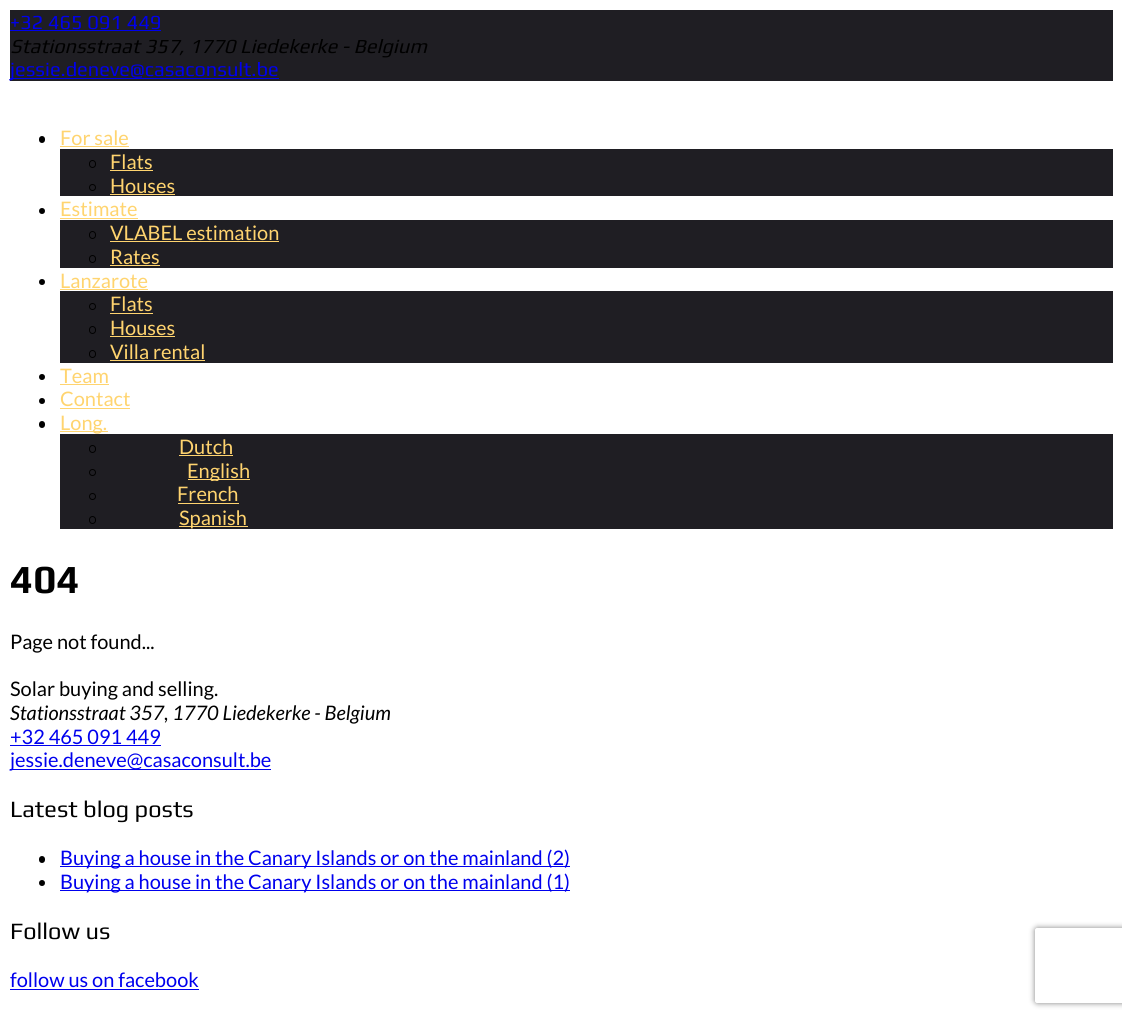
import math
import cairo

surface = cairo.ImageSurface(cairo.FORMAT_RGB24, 1122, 1019)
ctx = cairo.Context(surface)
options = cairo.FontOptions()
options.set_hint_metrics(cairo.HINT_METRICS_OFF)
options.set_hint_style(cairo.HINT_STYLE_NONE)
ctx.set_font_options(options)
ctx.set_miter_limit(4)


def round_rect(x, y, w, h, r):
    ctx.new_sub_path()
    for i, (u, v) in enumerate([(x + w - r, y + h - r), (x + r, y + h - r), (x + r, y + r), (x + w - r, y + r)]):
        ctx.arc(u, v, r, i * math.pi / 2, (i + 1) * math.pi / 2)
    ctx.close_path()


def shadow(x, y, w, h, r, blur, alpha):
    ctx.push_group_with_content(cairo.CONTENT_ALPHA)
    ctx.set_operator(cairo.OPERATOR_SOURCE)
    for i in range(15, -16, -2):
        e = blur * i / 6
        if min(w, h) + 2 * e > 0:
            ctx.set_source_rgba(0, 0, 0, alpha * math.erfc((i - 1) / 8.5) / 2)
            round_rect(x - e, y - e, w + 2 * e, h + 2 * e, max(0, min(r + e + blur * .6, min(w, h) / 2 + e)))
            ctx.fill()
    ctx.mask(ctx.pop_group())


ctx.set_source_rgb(1, 1, 1)
ctx.paint()
ctx.set_source_rgb(0.122, 0.118, 0.137)
ctx.rectangle(10, 10, 1103, 71)
ctx.fill()
ctx.select_font_face("Play")
ctx.set_font_size(20)
ctx.set_source_rgb(0, 0, 0.933)
ctx.move_to(10, 29)
ctx.show_text("+32 465 091 449")
ctx.rectangle(10, 30, 151, 1)
ctx.fill()
ctx.select_font_face("Play", cairo.FONT_SLANT_ITALIC)
ctx.set_source_rgb(0, 0, 0)
ctx.move_to(10, 53)
ctx.show_text("Stationsstraat 357, 1770 Liedekerke - Belgium")
ctx.set_source_rgb(0, 0, 0.933)
ctx.rectangle(10, 78, 269, 1)
ctx.fill()
ctx.select_font_face("Play")
ctx.move_to(10, 76)
ctx.show_text("jessie.deneve@casaconsult.be")
ctx.set_source_rgb(0, 0, 0)
round_rect(39, 136, 6, 7, 3)
ctx.fill()
ctx.select_font_face("Lato")
ctx.set_source_rgb(1, 0.831, 0.435)
ctx.move_to(60, 145)
ctx.show_text("For sale")
ctx.rectangle(60, 146, 69, 1)
ctx.fill()
ctx.set_source_rgb(0.122, 0.118, 0.137)
ctx.rectangle(60, 149, 1053, 47)
ctx.fill()
round_rect(89.5, 160.5, 6, 7, 3)
ctx.set_source_rgb(0, 0, 0)
ctx.set_line_width(1)
ctx.stroke()
ctx.set_source_rgb(1, 0.831, 0.435)
ctx.move_to(110, 169)
ctx.show_text("Flats")
ctx.rectangle(110, 170, 43, 1)
ctx.fill()
ctx.arc(92.5, 187.5, 3, 0, 2 * math.pi)
ctx.set_source_rgb(0, 0, 0)
ctx.stroke()
ctx.set_source_rgb(1, 0.831, 0.435)
ctx.move_to(110, 193)
ctx.show_text("Houses")
ctx.rectangle(110, 194, 65, 1)
ctx.fill()
ctx.set_source_rgb(0, 0, 0)
ctx.arc(42, 211, 3, 0, 2 * math.pi)
ctx.fill()
ctx.set_source_rgb(1, 0.831, 0.435)
ctx.move_to(60, 216)
ctx.show_text("Estimate")
ctx.rectangle(60, 218, 78, 1)
ctx.fill()
ctx.set_source_rgb(0.122, 0.118, 0.137)
ctx.rectangle(60, 220, 1053, 48)
ctx.fill()
round_rect(89.5, 231.5, 6, 7, 3)
ctx.set_source_rgb(0, 0, 0)
ctx.stroke()
ctx.set_source_rgb(1, 0.831, 0.435)
ctx.move_to(110, 240)
ctx.show_text("VLABEL estimation")
ctx.rectangle(110, 241, 169, 1)
ctx.fill()
round_rect(89.5, 255.5, 6, 7, 3)
ctx.set_source_rgb(0, 0, 0)
ctx.stroke()
ctx.set_source_rgb(1, 0.831, 0.435)
ctx.move_to(110, 264)
ctx.show_text("Rates")
ctx.rectangle(110, 265, 50, 1)
ctx.fill()
ctx.set_source_rgb(0, 0, 0)
ctx.arc(42, 282, 3, 0, 2 * math.pi)
ctx.fill()
ctx.set_source_rgb(1, 0.831, 0.435)
ctx.move_to(60, 288)
ctx.show_text("Lanzarote")
ctx.rectangle(60, 289, 88, 1)
ctx.fill()
ctx.set_source_rgb(0.122, 0.118, 0.137)
ctx.rectangle(60, 291, 1053, 72)
ctx.fill()
ctx.arc(92.5, 306.5, 3, 0, 2 * math.pi)
ctx.set_source_rgb(0, 0, 0)
ctx.stroke()
ctx.set_source_rgb(1, 0.831, 0.435)
ctx.move_to(110, 311)
ctx.show_text("Flats")
ctx.rectangle(110, 313, 43, 1)
ctx.fill()
round_rect(89.5, 326.5, 6, 7, 3)
ctx.set_source_rgb(0, 0, 0)
ctx.stroke()
ctx.set_source_rgb(1, 0.831, 0.435)
ctx.move_to(110, 335)
ctx.show_text("Houses")
ctx.rectangle(110, 336, 65, 1)
ctx.fill()
round_rect(89.5, 350.5, 6, 7, 3)
ctx.set_source_rgb(0, 0, 0)
ctx.stroke()
ctx.set_source_rgb(1, 0.831, 0.435)
ctx.move_to(110, 359)
ctx.show_text("Villa rental")
ctx.rectangle(110, 360, 95, 1)
ctx.fill()
ctx.set_source_rgb(0, 0, 0)
ctx.arc(42, 377, 3, 0, 2 * math.pi)
ctx.fill()
ctx.set_source_rgb(1, 0.831, 0.435)
ctx.move_to(60, 383)
ctx.show_text("Team")
ctx.rectangle(60, 384, 49, 1)
ctx.fill()
ctx.set_source_rgb(0, 0, 0)
ctx.arc(42, 401, 3, 0, 2 * math.pi)
ctx.fill()
ctx.set_source_rgb(1, 0.831, 0.435)
ctx.move_to(60, 406)
ctx.show_text("Contact")
ctx.rectangle(60, 408, 70, 1)
ctx.fill()
ctx.set_source_rgb(0, 0, 0)
round_rect(39, 421, 6, 7, 3)
ctx.fill()
ctx.set_source_rgb(1, 0.831, 0.435)
ctx.rectangle(60, 431, 48, 1)
ctx.fill()
ctx.move_to(60, 430)
ctx.show_text("Long.")
ctx.set_source_rgb(0.122, 0.118, 0.137)
ctx.rectangle(60, 434, 1053, 95)
ctx.fill()
round_rect(89.5, 445.5, 6, 7, 3)
ctx.set_source_rgb(0, 0, 0)
ctx.stroke()
ctx.set_source_rgb(1, 0.831, 0.435)
ctx.move_to(179, 454)
ctx.show_text("Dutch")
ctx.rectangle(179, 455, 54, 1)
ctx.fill()
ctx.arc(92.5, 472.5, 3, 0, 2 * math.pi)
ctx.set_source_rgb(0, 0, 0)
ctx.stroke()
ctx.set_source_rgb(1, 0.831, 0.435)
ctx.rectangle(188, 479, 62, 1)
ctx.fill()
ctx.move_to(187, 478)
ctx.show_text("English")
ctx.new_path()
ctx.arc(92.5, 496.5, 3, 0, 2 * math.pi)
ctx.set_source_rgb(0, 0, 0)
ctx.stroke()
ctx.set_source_rgb(1, 0.831, 0.435)
ctx.move_to(177, 501)
ctx.show_text("French")
ctx.set_source_rgb(0.122, 0.118, 0.137)
ctx.rectangle(212, 481, 6, 1)
ctx.fill()
ctx.set_source_rgb(1, 0.831, 0.435)
ctx.rectangle(178, 503, 61, 1)
ctx.fill()
round_rect(89.5, 516.5, 6, 7, 3)
ctx.set_source_rgb(0, 0, 0)
ctx.stroke()
ctx.set_source_rgb(1, 0.831, 0.435)
ctx.rectangle(179, 526, 69, 1)
ctx.fill()
ctx.move_to(179, 525)
ctx.show_text("Spanish")
ctx.select_font_face("Play", cairo.FONT_SLANT_NORMAL, cairo.FONT_WEIGHT_BOLD)
ctx.set_font_size(40)
ctx.set_source_rgb(0, 0, 0)
ctx.move_to(10, 593)
ctx.show_text("404")
ctx.select_font_face("Lato")
ctx.set_font_size(20)
ctx.move_to(10, 649)
ctx.show_text("Page not found...")
ctx.move_to(10, 696)
ctx.show_text("Solar buying and selling.")
ctx.select_font_face("Lato", cairo.FONT_SLANT_ITALIC)
ctx.move_to(10, 720)
ctx.show_text("Stationsstraat 357, 1770 Liedekerke - Belgium")
ctx.select_font_face("Lato")
ctx.set_source_rgb(0, 0, 0.933)
ctx.move_to(10, 744)
ctx.show_text("+32 465 091 449")
ctx.rectangle(10, 745, 151, 1)
ctx.fill()
ctx.rectangle(10, 769, 261, 1)
ctx.fill()
ctx.move_to(10, 767)
ctx.show_text("jessie.deneve@casaconsult.be")
ctx.select_font_face("Play")
ctx.set_font_size(23.5)
ctx.set_source_rgb(0, 0, 0)
ctx.move_to(10, 817)
ctx.show_text("Latest blog posts")
round_rect(39, 856, 6, 7, 3)
ctx.fill()
ctx.set_source_rgb(0, 0, 0.933)
ctx.rectangle(60, 866, 510, 1)
ctx.fill()
ctx.select_font_face("Lato")
ctx.set_font_size(20)
ctx.move_to(60, 865)
ctx.show_text("Buying a house in the Canary Islands or on the mainland (2)")
ctx.set_source_rgb(0, 0, 0)
ctx.new_path()
ctx.arc(42, 883, 3, 0, 2 * math.pi)
ctx.fill()
ctx.set_source_rgb(0, 0, 0.933)
ctx.rectangle(60, 890, 510, 1)
ctx.fill()
ctx.move_to(60, 889)
ctx.show_text("Buying a house in the Canary Islands or on the mainland (1)")
ctx.select_font_face("Play")
ctx.set_font_size(23.5)
ctx.set_source_rgb(0, 0, 0)
ctx.move_to(10, 939)
ctx.show_text("Follow us")
ctx.select_font_face("Lato")
ctx.set_font_size(20)
ctx.set_source_rgb(0, 0, 0.933)
ctx.move_to(10, 987)
ctx.show_text("follow us on facebook")
ctx.rectangle(10, 989, 189, 1)
ctx.fill()
ctx.save()
ctx.set_fill_rule(cairo.FILL_RULE_EVEN_ODD)
ctx.new_path()
ctx.move_to(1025, 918)
ctx.line_to(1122, 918)
ctx.line_to(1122, 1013)
ctx.line_to(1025, 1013)
ctx.close_path()
ctx.move_to(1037.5, 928)
ctx.line_to(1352.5, 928)
ctx.curve_to(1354, 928, 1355, 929, 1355, 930.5)
ctx.line_to(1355, 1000.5)
ctx.curve_to(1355, 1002, 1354, 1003, 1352.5, 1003)
ctx.line_to(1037.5, 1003)
ctx.curve_to(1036, 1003, 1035, 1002, 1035, 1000.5)
ctx.line_to(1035, 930.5)
ctx.curve_to(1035, 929, 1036, 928, 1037.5, 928)
ctx.close_path()
ctx.clip()
ctx.set_source_rgb(0.502, 0.502, 0.502)
shadow(1035, 928, 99, 75, 2.5, 3, 1)
ctx.restore()
surface.write_to_png("page.png")
